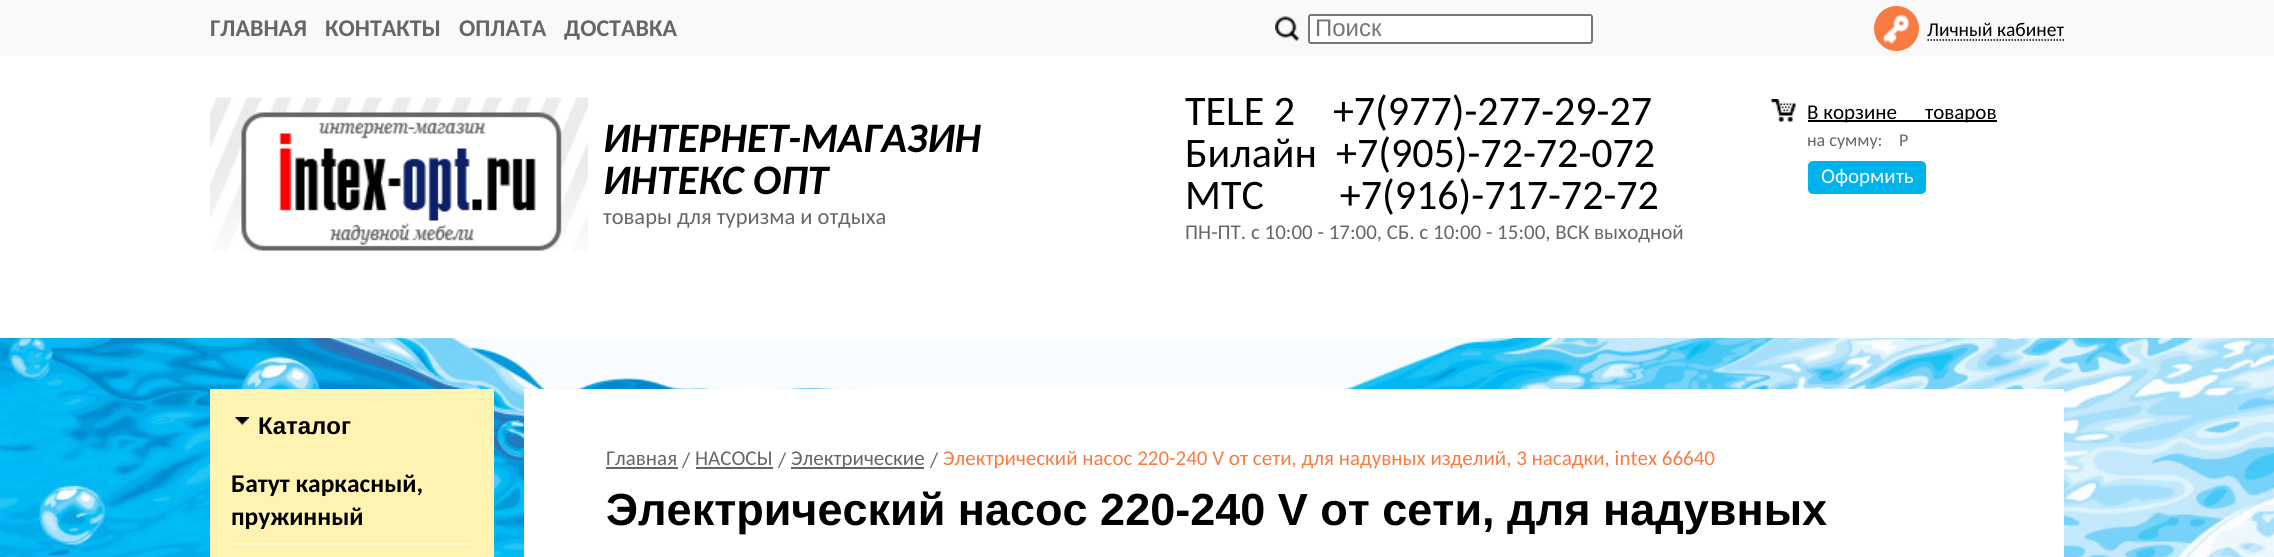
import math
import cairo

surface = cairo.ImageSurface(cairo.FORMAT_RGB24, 2274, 557)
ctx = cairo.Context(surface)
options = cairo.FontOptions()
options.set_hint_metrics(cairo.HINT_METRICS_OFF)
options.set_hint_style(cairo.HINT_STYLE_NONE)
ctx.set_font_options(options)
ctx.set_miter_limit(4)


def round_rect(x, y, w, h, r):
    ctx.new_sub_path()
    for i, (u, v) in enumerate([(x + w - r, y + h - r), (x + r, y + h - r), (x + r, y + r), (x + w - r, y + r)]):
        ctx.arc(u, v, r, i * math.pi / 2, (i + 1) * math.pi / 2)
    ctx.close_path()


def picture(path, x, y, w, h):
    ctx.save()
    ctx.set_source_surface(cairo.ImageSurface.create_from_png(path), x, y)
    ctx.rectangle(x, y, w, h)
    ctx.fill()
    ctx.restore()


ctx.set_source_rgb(1, 1, 1)
ctx.paint()
ctx.set_source_rgb(0.973, 0.976, 0.976)
ctx.rectangle(0, 0, 2274, 56)
ctx.fill()
ctx.select_font_face("Carlito", cairo.FONT_SLANT_NORMAL, cairo.FONT_WEIGHT_BOLD)
ctx.set_font_size(24)
ctx.set_source_rgb(0.4, 0.4, 0.4)
ctx.move_to(210, 36)
ctx.show_text("ГЛАВНАЯ")
ctx.move_to(325, 36)
ctx.show_text("КОНТАКТЫ")
ctx.move_to(459, 36)
ctx.show_text("ОПЛАТА")
ctx.move_to(564, 36)
ctx.show_text("ДОСТАВКА")
picture("img1.png", 1275, 16, 25, 25)
ctx.set_source_rgb(1, 1, 1)
round_rect(1309, 15, 283, 28, 2)
ctx.fill_preserve()
ctx.set_source_rgb(0.463, 0.463, 0.463)
ctx.stroke()
ctx.select_font_face("Liberation Sans")
ctx.set_source_rgb(0.459, 0.459, 0.459)
ctx.move_to(1315, 36)
ctx.show_text("Поиск")
ctx.set_source_rgb(0.969, 0.482, 0.259)
ctx.new_path()
ctx.arc(1896.5, 28.5, 22.5, 0, 2 * math.pi)
ctx.fill()
picture("img2.png", 1882, 14, 28, 30)
ctx.new_path()
ctx.move_to(1927.5, 40)
ctx.line_to(2064, 40)
ctx.set_source_rgb(0, 0, 0)
ctx.set_line_width(1.5)
ctx.set_dash([1.5, 1.5])
ctx.stroke()
ctx.select_font_face("Carlito")
ctx.set_font_size(19.5)
ctx.move_to(1927, 36)
ctx.show_text("Личный кабинет")
picture("img3.png", 210, 97, 378, 154)
ctx.select_font_face("Carlito", cairo.FONT_SLANT_ITALIC, cairo.FONT_WEIGHT_BOLD)
ctx.set_font_size(42)
ctx.move_to(603, 152)
ctx.show_text("ИНТЕРНЕТ-МАГАЗИН")
ctx.move_to(603, 194)
ctx.show_text("ИНТЕКС ОПТ")
ctx.select_font_face("Carlito")
ctx.set_font_size(22.5)
ctx.set_source_rgb(0.4, 0.4, 0.4)
ctx.move_to(603, 224)
ctx.show_text("товары для туризма и отдыха")
ctx.set_font_size(42)
ctx.set_source_rgb(0, 0, 0)
ctx.move_to(1185, 125)
ctx.show_text("TELE 2    +7(977)-277-29-27")
ctx.move_to(1185, 167)
ctx.show_text("Билайн  +7(905)-72-72-072")
ctx.move_to(1185, 209)
ctx.show_text("МТС        +7(916)-717-72-72")
ctx.set_font_size(21)
ctx.set_source_rgb(0.4, 0.4, 0.4)
ctx.move_to(1185, 239)
ctx.show_text("ПН-ПТ. с 10:00 - 17:00, СБ. с 10:00 - 15:00, ВСК выходной")
picture("img4.png", 1771, 99, 25, 23)
ctx.set_source_rgb(0, 0, 0)
ctx.rectangle(1808, 120, 189, 2)
ctx.fill()
ctx.move_to(1807, 119)
ctx.show_text("В корзине")
ctx.move_to(1925, 119)
ctx.show_text("товаров")
ctx.set_font_size(18)
ctx.set_source_rgb(0.4, 0.4, 0.4)
ctx.move_to(1807, 146)
ctx.show_text("на сумму:")
ctx.move_to(1899, 146)
ctx.show_text("Р")
ctx.set_source_rgb(0, 0.698, 0.922)
round_rect(1808, 161, 118, 33, 5)
ctx.fill()
ctx.set_font_size(21)
ctx.set_source_rgb(1, 1, 1)
ctx.move_to(1821, 183)
ctx.show_text("Оформить")
picture("img5.png", 0, 338, 2274, 219)
ctx.set_source_rgb(1, 0.953, 0.698)
ctx.rectangle(210, 389, 284, 168)
ctx.fill()
picture("img6.png", 235, 417, 14, 8)
ctx.select_font_face("Liberation Sans", cairo.FONT_SLANT_NORMAL, cairo.FONT_WEIGHT_BOLD)
ctx.set_font_size(24)
ctx.set_source_rgb(0, 0, 0)
ctx.move_to(258, 434)
ctx.show_text("Каталог")
ctx.set_source_rgb(1, 0.969, 0.788)
ctx.rectangle(231, 543, 242, 2)
ctx.fill()
ctx.select_font_face("Carlito", cairo.FONT_SLANT_NORMAL, cairo.FONT_WEIGHT_BOLD)
ctx.set_font_size(25.5)
ctx.set_source_rgb(0, 0, 0)
ctx.move_to(231, 492)
ctx.show_text("Батут каркасный,")
ctx.move_to(231, 525)
ctx.show_text("пружинный")
ctx.set_source_rgb(1, 1, 1)
ctx.rectangle(524, 389, 1540, 168)
ctx.fill()
ctx.select_font_face("Carlito")
ctx.set_font_size(21)
ctx.set_source_rgb(0.4, 0.4, 0.4)
ctx.move_to(606, 465)
ctx.show_text("Главная")
ctx.rectangle(606, 467, 72, 2)
ctx.fill()
ctx.move_to(682, 467)
ctx.show_text("/")
ctx.move_to(695, 465)
ctx.show_text("НАСОСЫ")
ctx.rectangle(696, 467, 77, 2)
ctx.fill()
ctx.move_to(778, 467)
ctx.show_text("/")
ctx.rectangle(791, 467, 133, 2)
ctx.fill()
ctx.move_to(791, 465)
ctx.show_text("Электрические")
ctx.move_to(930, 467)
ctx.show_text("/")
ctx.set_source_rgb(0.969, 0.482, 0.259)
ctx.move_to(943, 465)
ctx.show_text("Электрический насос 220-240 V от сети, для надувных изделий, 3 насадки, intex 66640")
ctx.select_font_face("Liberation Sans", cairo.FONT_SLANT_NORMAL, cairo.FONT_WEIGHT_BOLD)
ctx.set_font_size(45)
ctx.set_source_rgb(0, 0, 0)
ctx.move_to(606, 525)
ctx.show_text("Электрический насос 220-240 V от сети, для надувных")
surface.write_to_png("page.png")
